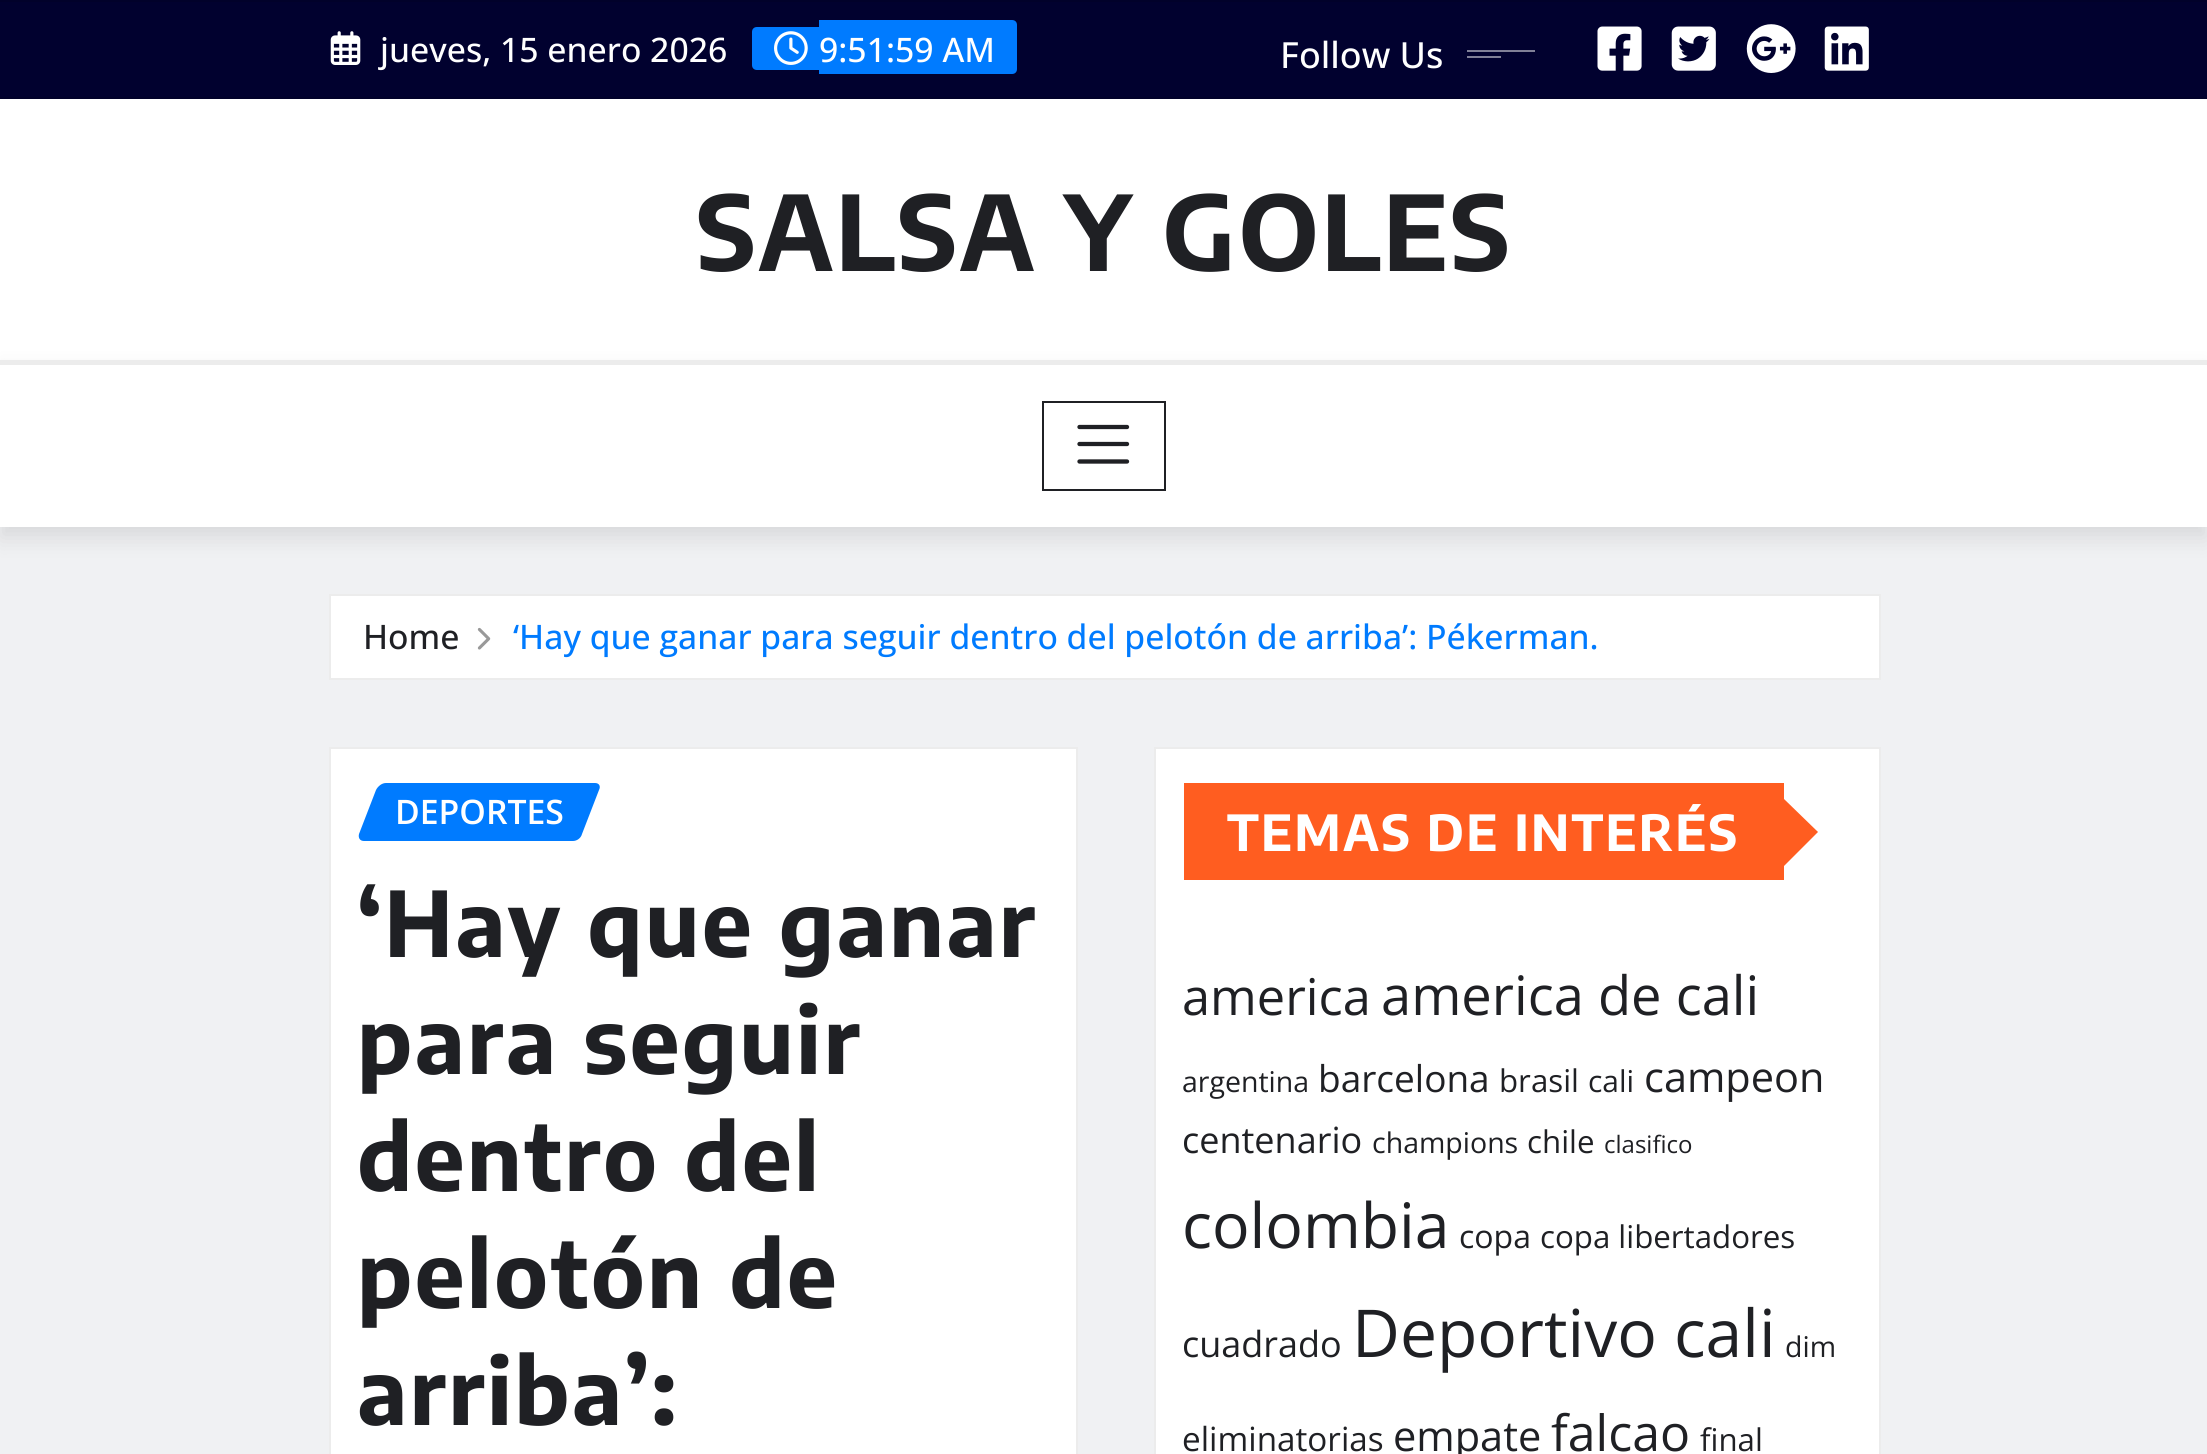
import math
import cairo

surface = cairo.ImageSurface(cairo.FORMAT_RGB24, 2207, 1454)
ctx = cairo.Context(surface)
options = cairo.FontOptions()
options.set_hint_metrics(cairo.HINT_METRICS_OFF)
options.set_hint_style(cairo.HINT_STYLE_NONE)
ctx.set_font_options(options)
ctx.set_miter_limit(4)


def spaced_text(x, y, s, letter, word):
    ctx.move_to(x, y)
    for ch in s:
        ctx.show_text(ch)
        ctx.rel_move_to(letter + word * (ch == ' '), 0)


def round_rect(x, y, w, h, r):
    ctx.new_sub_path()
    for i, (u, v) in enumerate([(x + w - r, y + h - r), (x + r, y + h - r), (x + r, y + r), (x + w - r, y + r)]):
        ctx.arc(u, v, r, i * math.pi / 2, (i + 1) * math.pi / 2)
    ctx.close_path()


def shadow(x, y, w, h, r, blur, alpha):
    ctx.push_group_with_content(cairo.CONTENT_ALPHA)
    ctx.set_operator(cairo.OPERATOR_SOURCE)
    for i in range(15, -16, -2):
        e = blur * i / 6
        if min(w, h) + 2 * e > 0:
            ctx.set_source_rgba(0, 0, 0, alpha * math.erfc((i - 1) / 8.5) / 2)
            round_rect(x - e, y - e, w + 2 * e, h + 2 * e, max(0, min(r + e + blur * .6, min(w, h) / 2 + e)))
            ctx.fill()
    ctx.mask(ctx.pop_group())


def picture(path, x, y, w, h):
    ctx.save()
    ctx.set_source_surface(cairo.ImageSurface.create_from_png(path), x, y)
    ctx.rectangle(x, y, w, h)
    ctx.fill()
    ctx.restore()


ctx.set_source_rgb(0.941, 0.945, 0.953)
ctx.paint()
ctx.set_source_rgb(0.004, 0.004, 0.184)
ctx.rectangle(0, 2, 2207, 95)
ctx.fill()
ctx.set_source_rgb(0.004, 0.004, 0.165)
ctx.rectangle(0, 0, 2207, 2)
ctx.fill()
ctx.rectangle(0, 97, 2207, 2)
ctx.fill()
picture("img1.png", 330, 31, 31, 34)
ctx.select_font_face("Open Sans Medium")
ctx.set_font_size(33.75)
ctx.set_source_rgb(1, 1, 1)
ctx.move_to(380, 62)
ctx.show_text("jueves, 15 enero 2026")
ctx.set_source_rgb(0, 0.482, 1)
ctx.new_path()
ctx.move_to(757, 27)
ctx.line_to(819, 27)
ctx.line_to(819, 70)
ctx.line_to(757, 70)
ctx.curve_to(754, 70, 752, 68, 752, 65)
ctx.line_to(752, 32)
ctx.curve_to(752, 29, 754, 27, 757, 27)
ctx.close_path()
ctx.fill()
picture("img2.png", 774, 31, 34, 34)
ctx.new_path()
ctx.move_to(819, 20)
ctx.line_to(1012, 20)
ctx.curve_to(1015, 20, 1017, 22, 1017, 25)
ctx.line_to(1017, 69)
ctx.curve_to(1017, 72, 1015, 74, 1012, 74)
ctx.line_to(819, 74)
ctx.close_path()
ctx.fill()
ctx.set_source_rgb(1, 1, 1)
ctx.move_to(819, 62)
ctx.show_text("9:51:59 AM")
ctx.set_font_size(36)
ctx.move_to(1280, 68)
ctx.show_text("Follow Us")
ctx.set_source_rgb(0.502, 0.502, 0.592)
ctx.rectangle(1467, 50, 68, 2)
ctx.fill()
ctx.rectangle(1467, 56, 34, 2)
ctx.fill()
picture("img3.png", 1597, 26, 45, 45)
picture("img4.png", 1671, 26, 45, 45)
picture("img5.png", 1746, 24, 50, 49)
picture("img6.png", 1824, 26, 45, 45)
ctx.set_source_rgb(1, 1, 1)
ctx.rectangle(0, 99, 2207, 261)
ctx.fill()
ctx.select_font_face("Encode Sans Condensed", cairo.FONT_SLANT_NORMAL, cairo.FONT_WEIGHT_BOLD)
ctx.set_font_size(103.5)
ctx.set_source_rgb(0.122, 0.125, 0.141)
spaced_text(696, 271, "SALSA Y GOLES", 2.25, 0)
ctx.set_source_rgb(0, 0, 0)
shadow(0, 371, 2207, 167, 0, 11, 0.1)
ctx.set_source_rgb(1, 1, 1)
ctx.rectangle(0, 365, 2207, 162)
ctx.fill()
ctx.set_source_rgb(0.922, 0.922, 0.922)
ctx.rectangle(0, 360, 2207, 5)
ctx.fill()
ctx.rectangle(1043, 402, 122, 88)
ctx.set_source_rgb(0.122, 0.125, 0.141)
ctx.stroke()
ctx.new_path()
ctx.move_to(1079.5, 427)
ctx.line_to(1127, 427)
ctx.move_to(1079.5, 444)
ctx.line_to(1127, 444)
ctx.move_to(1079.5, 461.5)
ctx.line_to(1127, 461.5)
ctx.set_line_width(4.3)
ctx.set_line_cap(cairo.LINE_CAP_ROUND)
ctx.stroke()
ctx.set_source_rgb(1, 1, 1)
ctx.rectangle(330, 595, 1550, 84)
ctx.fill_preserve()
ctx.set_source_rgb(0.922, 0.922, 0.922)
ctx.set_line_width(2)
ctx.set_line_cap(cairo.LINE_CAP_BUTT)
ctx.stroke()
ctx.select_font_face("Open Sans Medium")
ctx.set_font_size(33.75)
ctx.set_source_rgb(0.122, 0.125, 0.141)
ctx.move_to(363, 649)
ctx.show_text("Home")
picture("img7.png", 477, 627, 14, 23)
ctx.set_source_rgb(0, 0.482, 1)
ctx.move_to(513, 649)
ctx.show_text("‘Hay que ganar para seguir dentro del pelotón de arriba’: Pékerman.")
ctx.set_source_rgb(1, 1, 1)
ctx.rectangle(330, 748, 747, 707)
ctx.fill_preserve()
ctx.set_source_rgb(0.922, 0.922, 0.922)
ctx.stroke()
ctx.set_source_rgb(0, 0.482, 1)
ctx.new_path()
ctx.move_to(386, 783)
ctx.line_to(595, 783)
ctx.curve_to(599, 783, 601, 786, 599, 790)
ctx.line_to(582, 834)
ctx.curve_to(581, 838, 577, 841, 573, 841)
ctx.line_to(364, 841)
ctx.curve_to(360, 841, 358, 838, 359, 834)
ctx.line_to(376, 790)
ctx.curve_to(378, 786, 382, 783, 386, 783)
ctx.close_path()
ctx.fill()
ctx.select_font_face("Open Sans SemiBold")
ctx.set_source_rgb(1, 1, 1)
ctx.move_to(395, 824)
ctx.show_text("DEPORTES")
ctx.select_font_face("Encode Sans Condensed", cairo.FONT_SLANT_NORMAL, cairo.FONT_WEIGHT_BOLD)
ctx.set_font_size(90)
ctx.set_source_rgb(0.122, 0.125, 0.141)
spaced_text(357, 957, "‘Hay que ganar", 2.25, 0)
spaced_text(357, 1074, "para seguir", 2.25, 0)
spaced_text(357, 1191, "dentro del", 2.25, 0)
spaced_text(357, 1308, "pelotón de", 2.25, 0)
spaced_text(357, 1425, "arriba’:", 2.25, 0)
ctx.set_source_rgb(1, 1, 1)
ctx.rectangle(1155, 748, 725, 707)
ctx.fill_preserve()
ctx.set_source_rgb(0.922, 0.922, 0.922)
ctx.stroke()
ctx.set_source_rgb(1, 0.365, 0.125)
ctx.rectangle(1184, 783, 600, 97)
ctx.fill()
ctx.set_font_size(49.5)
ctx.set_source_rgb(1, 1, 1)
spaced_text(1227, 851, "TEMAS DE INTERÉS", 2.25, 0)
ctx.set_source_rgb(1, 0.365, 0.125)
ctx.new_path()
ctx.move_to(1784, 866)
ctx.line_to(1784, 799)
ctx.line_to(1818, 832)
ctx.close_path()
ctx.fill()
ctx.select_font_face("Open Sans")
ctx.set_font_size(50.5)
ctx.set_source_rgb(0.122, 0.125, 0.141)
ctx.move_to(1182, 1015)
ctx.show_text("america")
ctx.set_font_size(54.25)
ctx.move_to(1381, 1015)
ctx.show_text("america de cali")
ctx.set_font_size(28.5)
ctx.move_to(1182, 1092)
ctx.show_text("argentina")
ctx.set_font_size(37)
ctx.move_to(1318, 1092)
ctx.show_text("barcelona")
ctx.set_font_size(31.25)
ctx.move_to(1499, 1092)
ctx.show_text("brasil")
ctx.set_font_size(30)
ctx.move_to(1588, 1092)
ctx.show_text("cali")
ctx.set_font_size(41.5)
ctx.move_to(1644, 1092)
ctx.show_text("campeon")
ctx.set_font_size(36)
ctx.move_to(1182, 1153)
ctx.show_text("centenario")
ctx.set_font_size(28.5)
ctx.move_to(1372, 1153)
ctx.show_text("champions")
ctx.set_font_size(31.25)
ctx.move_to(1527, 1153)
ctx.show_text("chile")
ctx.set_font_size(24)
ctx.move_to(1604, 1153)
ctx.show_text("clasifico")
ctx.set_font_size(62.5)
ctx.move_to(1182, 1248)
ctx.show_text("colombia")
ctx.set_font_size(32)
ctx.move_to(1459, 1248)
ctx.show_text("copa")
ctx.set_font_size(31.25)
ctx.move_to(1540, 1248)
ctx.show_text("copa libertadores")
ctx.set_font_size(36)
ctx.move_to(1182, 1357)
ctx.show_text("cuadrado")
ctx.set_font_size(66)
ctx.move_to(1352, 1357)
ctx.show_text("Deportivo cali")
ctx.set_font_size(28.5)
ctx.move_to(1785, 1357)
ctx.show_text("dim")
ctx.set_font_size(33.25)
ctx.move_to(1182, 1451)
ctx.show_text("eliminatorias")
ctx.set_font_size(41.5)
ctx.move_to(1393, 1451)
ctx.show_text("empate")
ctx.set_font_size(50)
ctx.move_to(1551, 1451)
ctx.show_text("falcao")
ctx.set_font_size(31.25)
ctx.move_to(1700, 1451)
ctx.show_text("final")
surface.write_to_png("page.png")
